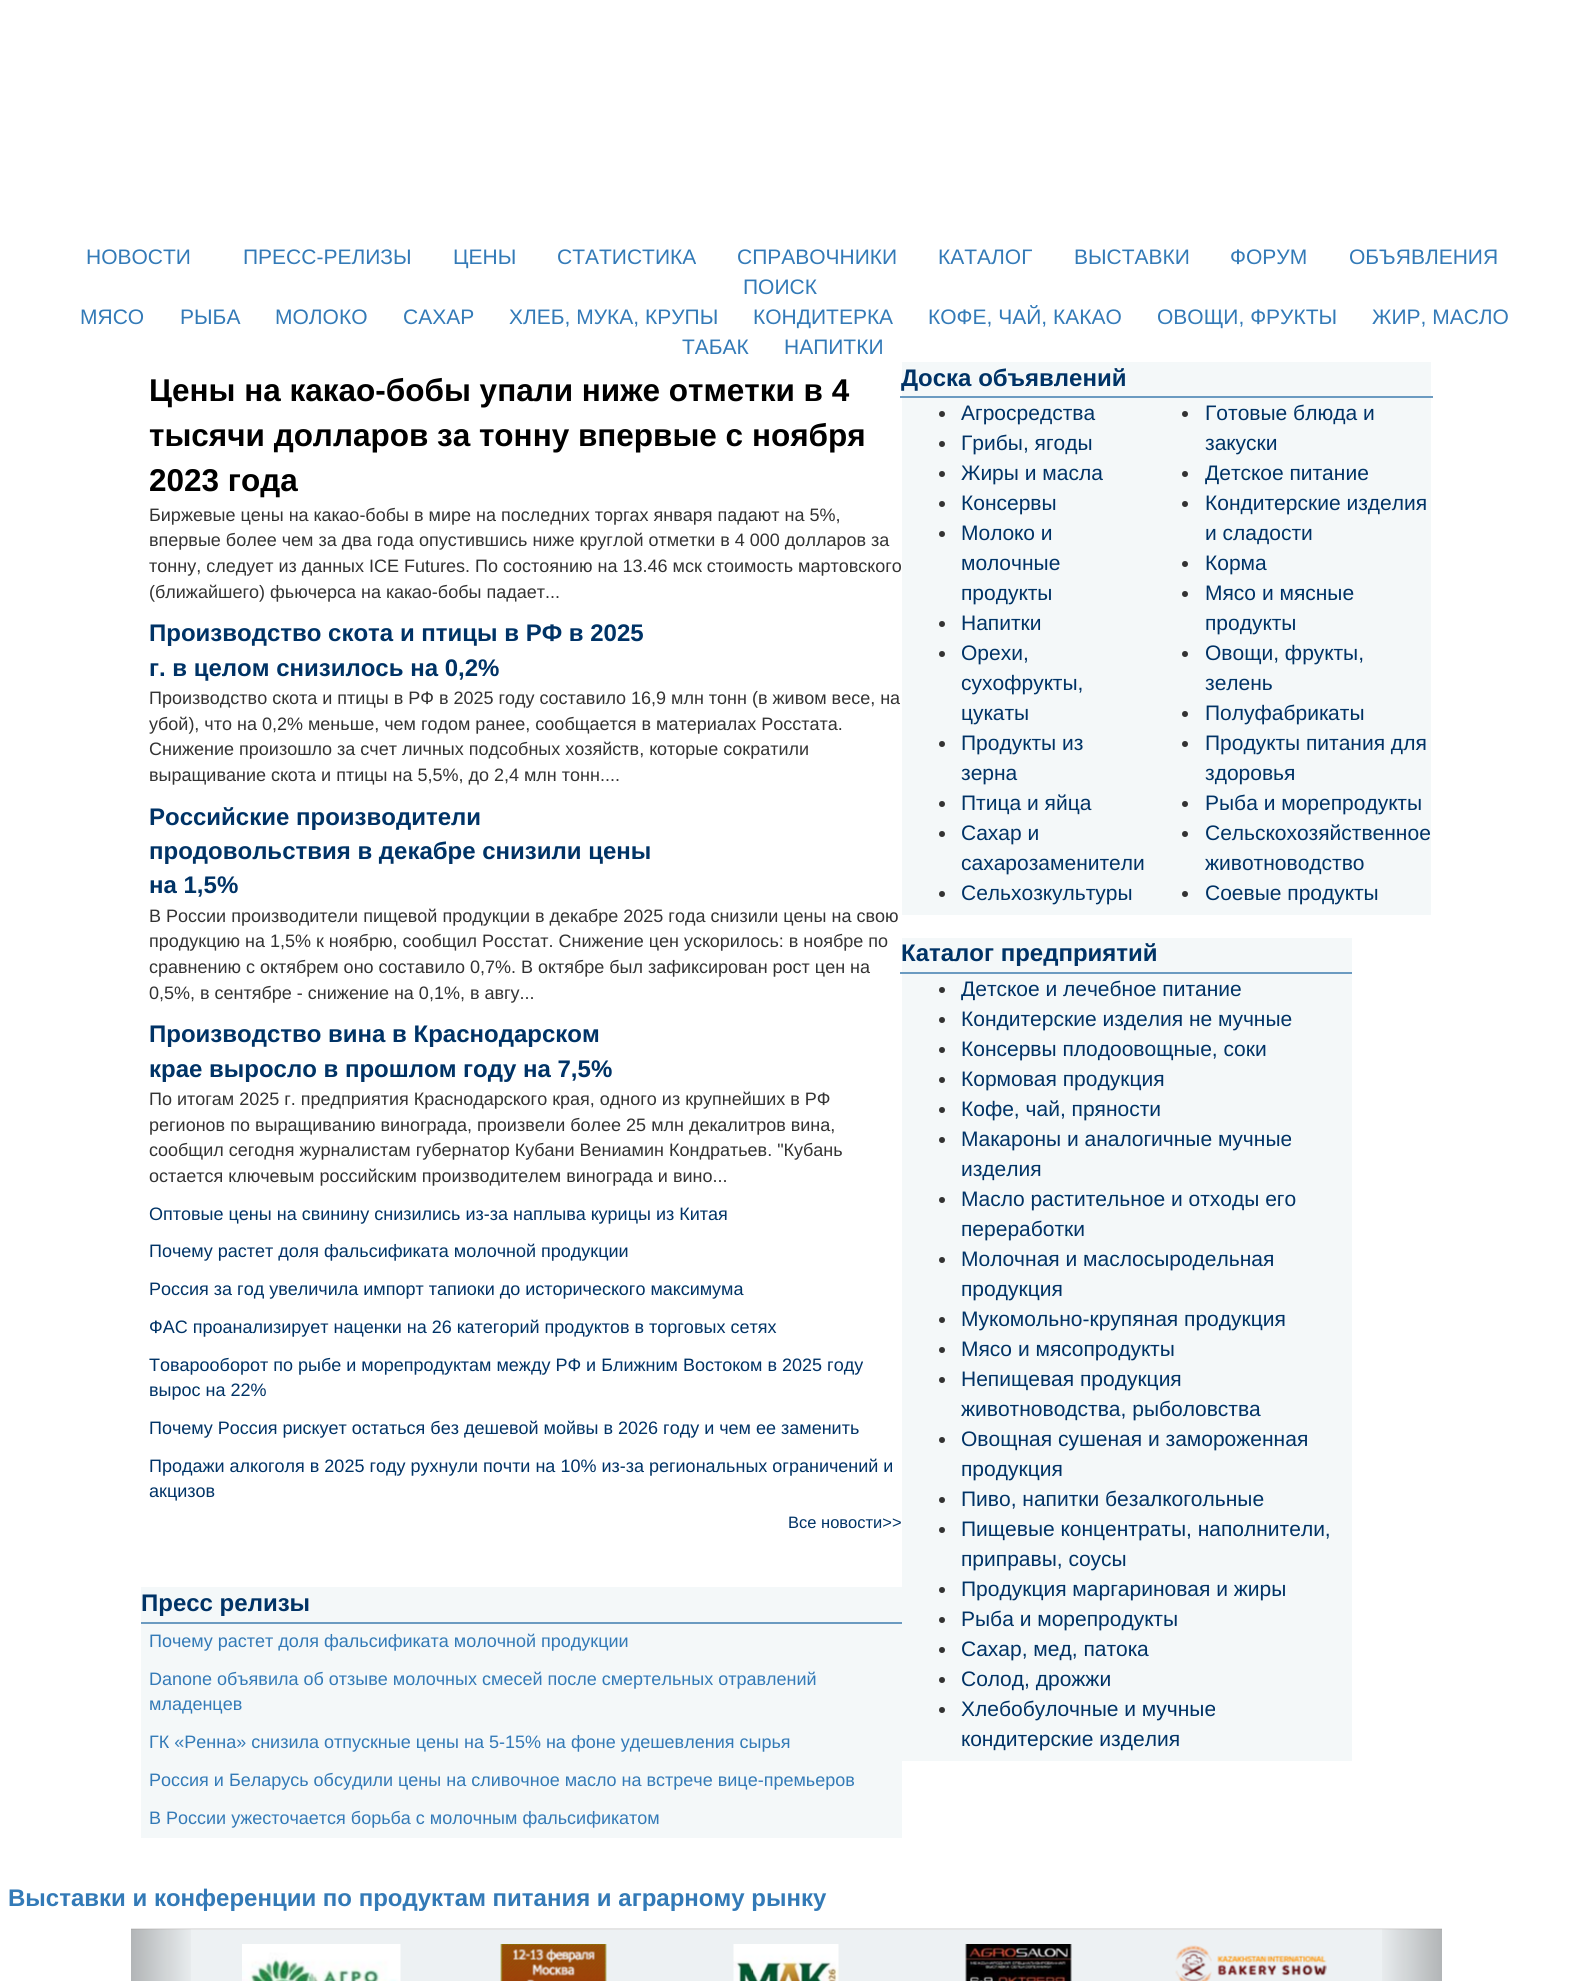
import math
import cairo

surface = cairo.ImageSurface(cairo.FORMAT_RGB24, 1572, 1981)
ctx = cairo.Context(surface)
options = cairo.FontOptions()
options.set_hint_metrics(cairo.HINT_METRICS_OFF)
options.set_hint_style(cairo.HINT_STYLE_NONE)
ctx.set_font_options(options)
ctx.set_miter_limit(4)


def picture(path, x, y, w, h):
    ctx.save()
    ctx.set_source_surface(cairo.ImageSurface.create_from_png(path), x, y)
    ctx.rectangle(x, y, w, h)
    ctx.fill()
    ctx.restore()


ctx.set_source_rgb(1, 1, 1)
ctx.paint()
ctx.select_font_face("Liberation Sans")
ctx.set_font_size(21)
ctx.set_source_rgb(0.2, 0.478, 0.718)
ctx.move_to(86, 264)
ctx.show_text("НОВОСТИ")
ctx.move_to(243, 264)
ctx.show_text("ПРЕСС-РЕЛИЗЫ")
ctx.move_to(453, 264)
ctx.show_text("ЦЕНЫ")
ctx.move_to(557, 264)
ctx.show_text("СТАТИСТИКА")
ctx.move_to(737, 264)
ctx.show_text("СПРАВОЧНИКИ")
ctx.move_to(938, 264)
ctx.show_text("КАТАЛОГ")
ctx.move_to(1074, 264)
ctx.show_text("ВЫСТАВКИ")
ctx.move_to(1230, 264)
ctx.show_text("ФОРУМ")
ctx.move_to(1349, 264)
ctx.show_text("ОБЪЯВЛЕНИЯ")
ctx.move_to(743, 294)
ctx.show_text("ПОИСК")
ctx.move_to(80, 324)
ctx.show_text("МЯСО")
ctx.move_to(180, 324)
ctx.show_text("РЫБА")
ctx.move_to(275, 324)
ctx.show_text("МОЛОКО")
ctx.move_to(403, 324)
ctx.show_text("САХАР")
ctx.move_to(509, 324)
ctx.show_text("ХЛЕБ, МУКА, КРУПЫ")
ctx.move_to(753, 324)
ctx.show_text("КОНДИТЕРКА")
ctx.move_to(928, 324)
ctx.show_text("КОФЕ, ЧАЙ, КАКАО")
ctx.move_to(1157, 324)
ctx.show_text("ОВОЩИ, ФРУКТЫ")
ctx.move_to(1372, 324)
ctx.show_text("ЖИР, МАСЛО")
ctx.move_to(682, 354)
ctx.show_text("ТАБАК")
ctx.move_to(784, 354)
ctx.show_text("НАПИТКИ")
ctx.select_font_face("Liberation Sans", cairo.FONT_SLANT_NORMAL, cairo.FONT_WEIGHT_BOLD)
ctx.set_font_size(31.5)
ctx.set_source_rgb(0, 0, 0)
ctx.move_to(149, 401)
ctx.show_text("Цены на какао-бобы упали ниже отметки в 4")
ctx.move_to(149, 446)
ctx.show_text("тысячи долларов за тонну впервые с ноября")
ctx.move_to(149, 491)
ctx.show_text("2023 года")
ctx.select_font_face("Liberation Sans")
ctx.set_font_size(18)
ctx.set_source_rgb(0.2, 0.2, 0.2)
ctx.move_to(149, 521)
ctx.show_text("Биржевые цены на какао-бобы в мире на последних торгах января падают на 5%,")
ctx.move_to(149, 546)
ctx.show_text("впервые более чем за два года опустившись ниже круглой отметки в 4 000 долларов за")
ctx.move_to(149, 572)
ctx.show_text("тонну, следует из данных ICE Futures. По состоянию на 13.46 мск стоимость мартовского")
ctx.move_to(149, 598)
ctx.show_text("(ближайшего) фьючерса на какао-бобы падает...")
ctx.select_font_face("Liberation Sans", cairo.FONT_SLANT_NORMAL, cairo.FONT_WEIGHT_BOLD)
ctx.set_font_size(24)
ctx.set_source_rgb(0, 0.2, 0.4)
ctx.move_to(149, 641)
ctx.show_text("Производство скота и птицы в РФ в 2025")
ctx.move_to(149, 676)
ctx.show_text("г. в целом снизилось на 0,2%")
ctx.select_font_face("Liberation Sans")
ctx.set_font_size(18)
ctx.set_source_rgb(0.2, 0.2, 0.2)
ctx.move_to(149, 704)
ctx.show_text("Производство скота и птицы в РФ в 2025 году составило 16,9 млн тонн (в живом весе, на")
ctx.move_to(149, 730)
ctx.show_text("убой), что на 0,2% меньше, чем годом ранее, сообщается в материалах Росстата.")
ctx.move_to(149, 755)
ctx.show_text("Снижение произошло за счет личных подсобных хозяйств, которые сократили")
ctx.move_to(149, 781)
ctx.show_text("выращивание скота и птицы на 5,5%, до 2,4 млн тонн....")
ctx.select_font_face("Liberation Sans", cairo.FONT_SLANT_NORMAL, cairo.FONT_WEIGHT_BOLD)
ctx.set_font_size(24)
ctx.set_source_rgb(0, 0.2, 0.4)
ctx.move_to(149, 825)
ctx.show_text("Российские производители")
ctx.move_to(149, 859)
ctx.show_text("продовольствия в декабре снизили цены")
ctx.move_to(149, 893)
ctx.show_text("на 1,5%")
ctx.select_font_face("Liberation Sans")
ctx.set_font_size(18)
ctx.set_source_rgb(0.2, 0.2, 0.2)
ctx.move_to(149, 922)
ctx.show_text("В России производители пищевой продукции в декабре 2025 года снизили цены на свою")
ctx.move_to(149, 947)
ctx.show_text("продукцию на 1,5% к ноябрю, сообщил Росстат. Снижение цен ускорилось: в ноябре по")
ctx.move_to(149, 973)
ctx.show_text("сравнению с октябрем оно составило 0,7%. В октябре был зафиксирован рост цен на")
ctx.move_to(149, 999)
ctx.show_text("0,5%, в сентябре - снижение на 0,1%, в авгу...")
ctx.select_font_face("Liberation Sans", cairo.FONT_SLANT_NORMAL, cairo.FONT_WEIGHT_BOLD)
ctx.set_font_size(24)
ctx.set_source_rgb(0, 0.2, 0.4)
ctx.move_to(149, 1042)
ctx.show_text("Производство вина в Краснодарском")
ctx.move_to(149, 1077)
ctx.show_text("крае выросло в прошлом году на 7,5%")
ctx.select_font_face("Liberation Sans")
ctx.set_font_size(18)
ctx.set_source_rgb(0.2, 0.2, 0.2)
ctx.move_to(149, 1105)
ctx.show_text("По итогам 2025 г. предприятия Краснодарского края, одного из крупнейших в РФ")
ctx.move_to(149, 1131)
ctx.show_text("регионов по выращиванию винограда, произвели более 25 млн декалитров вина,")
ctx.move_to(149, 1156)
ctx.show_text("сообщил сегодня журналистам губернатор Кубани Вениамин Кондратьев. \"Кубань")
ctx.move_to(149, 1182)
ctx.show_text("остается ключевым российским производителем винограда и вино...")
ctx.set_source_rgb(0, 0.2, 0.4)
ctx.move_to(149, 1220)
ctx.show_text("Оптовые цены на свинину снизились из-за наплыва курицы из Китая")
ctx.move_to(149, 1257)
ctx.show_text("Почему растет доля фальсификата молочной продукции")
ctx.move_to(149, 1295)
ctx.show_text("Россия за год увеличила импорт тапиоки до исторического максимума")
ctx.move_to(149, 1333)
ctx.show_text("ФАС проанализирует наценки на 26 категорий продуктов в торговых сетях")
ctx.move_to(149, 1371)
ctx.show_text("Товарооборот по рыбе и морепродуктам между РФ и Ближним Востоком в 2025 году")
ctx.move_to(149, 1396)
ctx.show_text("вырос на 22%")
ctx.move_to(149, 1434)
ctx.show_text("Почему Россия рискует остаться без дешевой мойвы в 2026 году и чем ее заменить")
ctx.move_to(149, 1472)
ctx.show_text("Продажи алкоголя в 2025 году рухнули почти на 10% из-за региональных ограничений и")
ctx.move_to(149, 1497)
ctx.show_text("акцизов")
ctx.set_font_size(16.5)
ctx.move_to(788, 1528)
ctx.show_text("Все новости>>")
ctx.set_source_rgb(0.957, 0.969, 0.976)
ctx.rectangle(141, 1587, 761, 251)
ctx.fill()
ctx.set_source_rgb(0.42, 0.608, 0.757)
ctx.rectangle(141, 1622, 761, 2)
ctx.fill()
ctx.select_font_face("Liberation Sans", cairo.FONT_SLANT_NORMAL, cairo.FONT_WEIGHT_BOLD)
ctx.set_font_size(24)
ctx.set_source_rgb(0, 0.2, 0.4)
ctx.move_to(141, 1611)
ctx.show_text("Пресс релизы")
ctx.select_font_face("Liberation Sans")
ctx.set_font_size(18)
ctx.set_source_rgb(0.2, 0.478, 0.718)
ctx.move_to(149, 1647)
ctx.show_text("Почему растет доля фальсификата молочной продукции")
ctx.move_to(149, 1685)
ctx.show_text("Danone объявила об отзыве молочных смесей после смертельных отравлений")
ctx.move_to(149, 1710)
ctx.show_text("младенцев")
ctx.move_to(149, 1748)
ctx.show_text("ГК «Ренна» снизила отпускные цены на 5-15% на фоне удешевления сырья")
ctx.move_to(149, 1786)
ctx.show_text("Россия и Беларусь обсудили цены на сливочное масло на встрече вице-премьеров")
ctx.move_to(149, 1824)
ctx.show_text("В России ужесточается борьба с молочным фальсификатом")
ctx.set_source_rgb(0.957, 0.969, 0.976)
ctx.rectangle(902, 362, 529, 553)
ctx.fill()
ctx.set_source_rgb(0.42, 0.608, 0.757)
ctx.rectangle(900, 396, 533, 2)
ctx.fill()
ctx.select_font_face("Liberation Sans", cairo.FONT_SLANT_NORMAL, cairo.FONT_WEIGHT_BOLD)
ctx.set_font_size(24)
ctx.set_source_rgb(0, 0.2, 0.4)
ctx.move_to(901, 386)
ctx.show_text("Доска объявлений")
ctx.set_source_rgb(0.2, 0.2, 0.2)
ctx.new_path()
ctx.arc(942, 414, 3, 0, 2 * math.pi)
ctx.fill()
ctx.select_font_face("Liberation Sans")
ctx.set_font_size(21)
ctx.set_source_rgb(0, 0.2, 0.4)
ctx.move_to(961, 420)
ctx.show_text("Агросредства")
ctx.set_source_rgb(0.2, 0.2, 0.2)
ctx.new_path()
ctx.arc(942, 444, 3, 0, 2 * math.pi)
ctx.fill()
ctx.set_source_rgb(0, 0.2, 0.4)
ctx.move_to(961, 450)
ctx.show_text("Грибы, ягоды")
ctx.set_source_rgb(0.2, 0.2, 0.2)
ctx.new_path()
ctx.arc(942, 474, 3, 0, 2 * math.pi)
ctx.fill()
ctx.set_source_rgb(0, 0.2, 0.4)
ctx.move_to(961, 480)
ctx.show_text("Жиры и масла")
ctx.set_source_rgb(0.2, 0.2, 0.2)
ctx.new_path()
ctx.arc(942, 504, 3, 0, 2 * math.pi)
ctx.fill()
ctx.set_source_rgb(0, 0.2, 0.4)
ctx.move_to(961, 510)
ctx.show_text("Консервы")
ctx.set_source_rgb(0.2, 0.2, 0.2)
ctx.new_path()
ctx.arc(942, 534, 3, 0, 2 * math.pi)
ctx.fill()
ctx.set_source_rgb(0, 0.2, 0.4)
ctx.move_to(961, 540)
ctx.show_text("Молоко и")
ctx.move_to(961, 570)
ctx.show_text("молочные")
ctx.move_to(961, 600)
ctx.show_text("продукты")
ctx.set_source_rgb(0.2, 0.2, 0.2)
ctx.new_path()
ctx.arc(942, 624, 3, 0, 2 * math.pi)
ctx.fill()
ctx.set_source_rgb(0, 0.2, 0.4)
ctx.move_to(961, 630)
ctx.show_text("Напитки")
ctx.set_source_rgb(0.2, 0.2, 0.2)
ctx.new_path()
ctx.arc(942, 654, 3, 0, 2 * math.pi)
ctx.fill()
ctx.set_source_rgb(0, 0.2, 0.4)
ctx.move_to(961, 660)
ctx.show_text("Орехи,")
ctx.move_to(961, 690)
ctx.show_text("сухофрукты,")
ctx.move_to(961, 720)
ctx.show_text("цукаты")
ctx.set_source_rgb(0.2, 0.2, 0.2)
ctx.new_path()
ctx.arc(942, 744, 3, 0, 2 * math.pi)
ctx.fill()
ctx.set_source_rgb(0, 0.2, 0.4)
ctx.move_to(961, 750)
ctx.show_text("Продукты из")
ctx.move_to(961, 780)
ctx.show_text("зерна")
ctx.set_source_rgb(0.2, 0.2, 0.2)
ctx.new_path()
ctx.arc(942, 804, 3, 0, 2 * math.pi)
ctx.fill()
ctx.set_source_rgb(0, 0.2, 0.4)
ctx.move_to(961, 810)
ctx.show_text("Птица и яйца")
ctx.set_source_rgb(0.2, 0.2, 0.2)
ctx.new_path()
ctx.arc(942, 834, 3, 0, 2 * math.pi)
ctx.fill()
ctx.set_source_rgb(0, 0.2, 0.4)
ctx.move_to(961, 840)
ctx.show_text("Сахар и")
ctx.move_to(961, 870)
ctx.show_text("сахарозаменители")
ctx.set_source_rgb(0.2, 0.2, 0.2)
ctx.new_path()
ctx.arc(942, 894, 3, 0, 2 * math.pi)
ctx.fill()
ctx.set_source_rgb(0, 0.2, 0.4)
ctx.move_to(961, 900)
ctx.show_text("Сельхозкультуры")
ctx.set_source_rgb(0.2, 0.2, 0.2)
ctx.new_path()
ctx.arc(1185, 414, 3, 0, 2 * math.pi)
ctx.fill()
ctx.set_source_rgb(0, 0.2, 0.4)
ctx.move_to(1205, 420)
ctx.show_text("Готовые блюда и")
ctx.move_to(1205, 450)
ctx.show_text("закуски")
ctx.set_source_rgb(0.2, 0.2, 0.2)
ctx.new_path()
ctx.arc(1185, 474, 3, 0, 2 * math.pi)
ctx.fill()
ctx.set_source_rgb(0, 0.2, 0.4)
ctx.move_to(1205, 480)
ctx.show_text("Детское питание")
ctx.set_source_rgb(0.2, 0.2, 0.2)
ctx.new_path()
ctx.arc(1185, 504, 3, 0, 2 * math.pi)
ctx.fill()
ctx.set_source_rgb(0, 0.2, 0.4)
ctx.move_to(1205, 510)
ctx.show_text("Кондитерские изделия")
ctx.move_to(1205, 540)
ctx.show_text("и сладости")
ctx.set_source_rgb(0.2, 0.2, 0.2)
ctx.new_path()
ctx.arc(1185, 564, 3, 0, 2 * math.pi)
ctx.fill()
ctx.set_source_rgb(0, 0.2, 0.4)
ctx.move_to(1205, 570)
ctx.show_text("Корма")
ctx.set_source_rgb(0.2, 0.2, 0.2)
ctx.new_path()
ctx.arc(1185, 594, 3, 0, 2 * math.pi)
ctx.fill()
ctx.set_source_rgb(0, 0.2, 0.4)
ctx.move_to(1205, 600)
ctx.show_text("Мясо и мясные")
ctx.move_to(1205, 630)
ctx.show_text("продукты")
ctx.set_source_rgb(0.2, 0.2, 0.2)
ctx.new_path()
ctx.arc(1185, 654, 3, 0, 2 * math.pi)
ctx.fill()
ctx.set_source_rgb(0, 0.2, 0.4)
ctx.move_to(1205, 660)
ctx.show_text("Овощи, фрукты,")
ctx.move_to(1205, 690)
ctx.show_text("зелень")
ctx.set_source_rgb(0.2, 0.2, 0.2)
ctx.new_path()
ctx.arc(1185, 714, 3, 0, 2 * math.pi)
ctx.fill()
ctx.set_source_rgb(0, 0.2, 0.4)
ctx.move_to(1205, 720)
ctx.show_text("Полуфабрикаты")
ctx.set_source_rgb(0.2, 0.2, 0.2)
ctx.new_path()
ctx.arc(1185, 744, 3, 0, 2 * math.pi)
ctx.fill()
ctx.set_source_rgb(0, 0.2, 0.4)
ctx.move_to(1205, 750)
ctx.show_text("Продукты питания для")
ctx.move_to(1205, 780)
ctx.show_text("здоровья")
ctx.set_source_rgb(0.2, 0.2, 0.2)
ctx.new_path()
ctx.arc(1185, 804, 3, 0, 2 * math.pi)
ctx.fill()
ctx.set_source_rgb(0, 0.2, 0.4)
ctx.move_to(1205, 810)
ctx.show_text("Рыба и морепродукты")
ctx.set_source_rgb(0.2, 0.2, 0.2)
ctx.new_path()
ctx.arc(1185, 834, 3, 0, 2 * math.pi)
ctx.fill()
ctx.set_source_rgb(0, 0.2, 0.4)
ctx.move_to(1205, 840)
ctx.show_text("Сельскохозяйственное")
ctx.move_to(1205, 870)
ctx.show_text("животноводство")
ctx.set_source_rgb(0.2, 0.2, 0.2)
ctx.new_path()
ctx.arc(1185, 894, 3, 0, 2 * math.pi)
ctx.fill()
ctx.set_source_rgb(0, 0.2, 0.4)
ctx.move_to(1205, 900)
ctx.show_text("Соевые продукты")
ctx.set_source_rgb(0.957, 0.969, 0.976)
ctx.rectangle(902, 938, 450, 823)
ctx.fill()
ctx.set_source_rgb(0.42, 0.608, 0.757)
ctx.rectangle(900, 972, 452, 2)
ctx.fill()
ctx.select_font_face("Liberation Sans", cairo.FONT_SLANT_NORMAL, cairo.FONT_WEIGHT_BOLD)
ctx.set_font_size(24)
ctx.set_source_rgb(0, 0.2, 0.4)
ctx.move_to(901, 961)
ctx.show_text("Каталог предприятий")
ctx.set_source_rgb(0.2, 0.2, 0.2)
ctx.new_path()
ctx.arc(942, 990, 3, 0, 2 * math.pi)
ctx.fill()
ctx.select_font_face("Liberation Sans")
ctx.set_font_size(21)
ctx.set_source_rgb(0, 0.2, 0.4)
ctx.move_to(961, 996)
ctx.show_text("Детское и лечебное питание")
ctx.set_source_rgb(0.2, 0.2, 0.2)
ctx.new_path()
ctx.arc(942, 1020, 3, 0, 2 * math.pi)
ctx.fill()
ctx.set_source_rgb(0, 0.2, 0.4)
ctx.move_to(961, 1026)
ctx.show_text("Кондитерские изделия не мучные")
ctx.set_source_rgb(0.2, 0.2, 0.2)
ctx.new_path()
ctx.arc(942, 1050, 3, 0, 2 * math.pi)
ctx.fill()
ctx.set_source_rgb(0, 0.2, 0.4)
ctx.move_to(961, 1056)
ctx.show_text("Консервы плодоовощные, соки")
ctx.set_source_rgb(0.2, 0.2, 0.2)
ctx.new_path()
ctx.arc(942, 1080, 3, 0, 2 * math.pi)
ctx.fill()
ctx.set_source_rgb(0, 0.2, 0.4)
ctx.move_to(961, 1086)
ctx.show_text("Кормовая продукция")
ctx.set_source_rgb(0.2, 0.2, 0.2)
ctx.new_path()
ctx.arc(942, 1110, 3, 0, 2 * math.pi)
ctx.fill()
ctx.set_source_rgb(0, 0.2, 0.4)
ctx.move_to(961, 1116)
ctx.show_text("Кофе, чай, пряности")
ctx.set_source_rgb(0.2, 0.2, 0.2)
ctx.new_path()
ctx.arc(942, 1140, 3, 0, 2 * math.pi)
ctx.fill()
ctx.set_source_rgb(0, 0.2, 0.4)
ctx.move_to(961, 1146)
ctx.show_text("Макароны и аналогичные мучные")
ctx.move_to(961, 1176)
ctx.show_text("изделия")
ctx.set_source_rgb(0.2, 0.2, 0.2)
ctx.new_path()
ctx.arc(942, 1200, 3, 0, 2 * math.pi)
ctx.fill()
ctx.set_source_rgb(0, 0.2, 0.4)
ctx.move_to(961, 1206)
ctx.show_text("Масло растительное и отходы его")
ctx.move_to(961, 1236)
ctx.show_text("переработки")
ctx.set_source_rgb(0.2, 0.2, 0.2)
ctx.new_path()
ctx.arc(942, 1260, 3, 0, 2 * math.pi)
ctx.fill()
ctx.set_source_rgb(0, 0.2, 0.4)
ctx.move_to(961, 1266)
ctx.show_text("Молочная и маслосыродельная")
ctx.move_to(961, 1296)
ctx.show_text("продукция")
ctx.set_source_rgb(0.2, 0.2, 0.2)
ctx.new_path()
ctx.arc(942, 1320, 3, 0, 2 * math.pi)
ctx.fill()
ctx.set_source_rgb(0, 0.2, 0.4)
ctx.move_to(961, 1326)
ctx.show_text("Мукомольно-крупяная продукция")
ctx.set_source_rgb(0.2, 0.2, 0.2)
ctx.new_path()
ctx.arc(942, 1350, 3, 0, 2 * math.pi)
ctx.fill()
ctx.set_source_rgb(0, 0.2, 0.4)
ctx.move_to(961, 1356)
ctx.show_text("Мясо и мясопродукты")
ctx.set_source_rgb(0.2, 0.2, 0.2)
ctx.new_path()
ctx.arc(942, 1380, 3, 0, 2 * math.pi)
ctx.fill()
ctx.set_source_rgb(0, 0.2, 0.4)
ctx.move_to(961, 1386)
ctx.show_text("Непищевая продукция")
ctx.move_to(961, 1416)
ctx.show_text("животноводства, рыболовства")
ctx.set_source_rgb(0.2, 0.2, 0.2)
ctx.new_path()
ctx.arc(942, 1440, 3, 0, 2 * math.pi)
ctx.fill()
ctx.set_source_rgb(0, 0.2, 0.4)
ctx.move_to(961, 1446)
ctx.show_text("Овощная сушеная и замороженная")
ctx.move_to(961, 1476)
ctx.show_text("продукция")
ctx.set_source_rgb(0.2, 0.2, 0.2)
ctx.new_path()
ctx.arc(942, 1500, 3, 0, 2 * math.pi)
ctx.fill()
ctx.set_source_rgb(0, 0.2, 0.4)
ctx.move_to(961, 1506)
ctx.show_text("Пиво, напитки безалкогольные")
ctx.set_source_rgb(0.2, 0.2, 0.2)
ctx.new_path()
ctx.arc(942, 1530, 3, 0, 2 * math.pi)
ctx.fill()
ctx.set_source_rgb(0, 0.2, 0.4)
ctx.move_to(961, 1536)
ctx.show_text("Пищевые концентраты, наполнители,")
ctx.move_to(961, 1566)
ctx.show_text("приправы, соусы")
ctx.set_source_rgb(0.2, 0.2, 0.2)
ctx.new_path()
ctx.arc(942, 1590, 3, 0, 2 * math.pi)
ctx.fill()
ctx.set_source_rgb(0, 0.2, 0.4)
ctx.move_to(961, 1596)
ctx.show_text("Продукция маргариновая и жиры")
ctx.set_source_rgb(0.2, 0.2, 0.2)
ctx.new_path()
ctx.arc(942, 1620, 3, 0, 2 * math.pi)
ctx.fill()
ctx.set_source_rgb(0, 0.2, 0.4)
ctx.move_to(961, 1626)
ctx.show_text("Рыба и морепродукты")
ctx.set_source_rgb(0.2, 0.2, 0.2)
ctx.new_path()
ctx.arc(942, 1650, 3, 0, 2 * math.pi)
ctx.fill()
ctx.set_source_rgb(0, 0.2, 0.4)
ctx.move_to(961, 1656)
ctx.show_text("Сахар, мед, патока")
ctx.set_source_rgb(0.2, 0.2, 0.2)
ctx.new_path()
ctx.arc(942, 1680, 3, 0, 2 * math.pi)
ctx.fill()
ctx.set_source_rgb(0, 0.2, 0.4)
ctx.move_to(961, 1686)
ctx.show_text("Солод, дрожжи")
ctx.set_source_rgb(0.2, 0.2, 0.2)
ctx.new_path()
ctx.arc(942, 1710, 3, 0, 2 * math.pi)
ctx.fill()
ctx.set_source_rgb(0, 0.2, 0.4)
ctx.move_to(961, 1716)
ctx.show_text("Хлебобулочные и мучные")
ctx.move_to(961, 1746)
ctx.show_text("кондитерские изделия")
ctx.select_font_face("Liberation Sans", cairo.FONT_SLANT_NORMAL, cairo.FONT_WEIGHT_BOLD)
ctx.set_font_size(24)
ctx.set_source_rgb(0.2, 0.478, 0.718)
ctx.move_to(8, 1906)
ctx.show_text("Выставки и конференции по продуктам питания и аграрному рынку")
ctx.set_source_rgb(0.929, 0.945, 0.953)
ctx.rectangle(131, 1930, 1311, 51)
ctx.fill()
ctx.set_source_rgb(0.898, 0.898, 0.898)
ctx.rectangle(131, 1928, 1311, 2)
ctx.fill()
gradient = cairo.LinearGradient(131, 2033, 197, 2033)
gradient.add_color_stop_rgba(0, 0, 0, 0, 0.25)
gradient.add_color_stop_rgba(1, 0, 0, 0, 0)
ctx.set_source(gradient)
ctx.rectangle(131, 1929, 60, 52)
ctx.fill()
picture("img1.png", 242, 1944, 159, 37)
picture("img2.png", 500, 1944, 107, 37)
picture("img3.png", 733, 1944, 106, 37)
picture("img4.png", 965, 1944, 107, 37)
picture("img5.png", 1175, 1945, 152, 36)
gradient = cairo.LinearGradient(1376, 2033, 1442, 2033)
gradient.add_color_stop_rgba(0, 0, 0, 0, 0)
gradient.add_color_stop_rgba(1, 0, 0, 0, 0.25)
ctx.set_source(gradient)
ctx.rectangle(1382, 1929, 60, 52)
ctx.fill()
surface.write_to_png("page.png")
